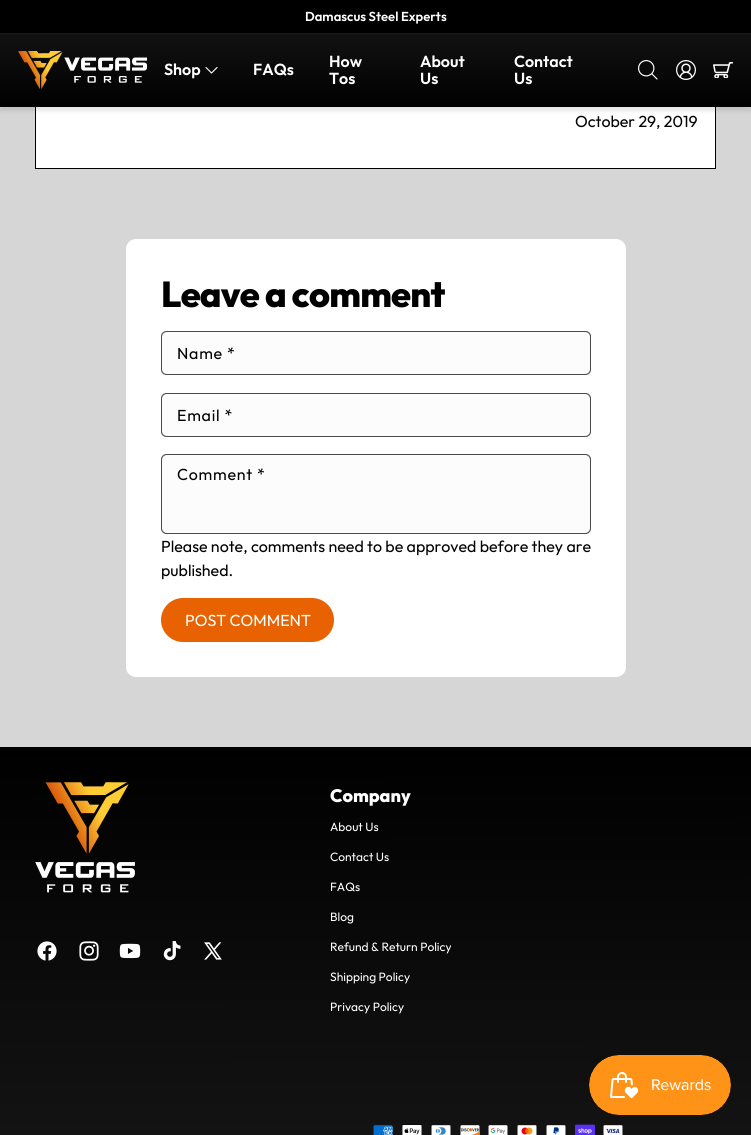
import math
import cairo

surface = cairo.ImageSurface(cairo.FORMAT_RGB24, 751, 1135)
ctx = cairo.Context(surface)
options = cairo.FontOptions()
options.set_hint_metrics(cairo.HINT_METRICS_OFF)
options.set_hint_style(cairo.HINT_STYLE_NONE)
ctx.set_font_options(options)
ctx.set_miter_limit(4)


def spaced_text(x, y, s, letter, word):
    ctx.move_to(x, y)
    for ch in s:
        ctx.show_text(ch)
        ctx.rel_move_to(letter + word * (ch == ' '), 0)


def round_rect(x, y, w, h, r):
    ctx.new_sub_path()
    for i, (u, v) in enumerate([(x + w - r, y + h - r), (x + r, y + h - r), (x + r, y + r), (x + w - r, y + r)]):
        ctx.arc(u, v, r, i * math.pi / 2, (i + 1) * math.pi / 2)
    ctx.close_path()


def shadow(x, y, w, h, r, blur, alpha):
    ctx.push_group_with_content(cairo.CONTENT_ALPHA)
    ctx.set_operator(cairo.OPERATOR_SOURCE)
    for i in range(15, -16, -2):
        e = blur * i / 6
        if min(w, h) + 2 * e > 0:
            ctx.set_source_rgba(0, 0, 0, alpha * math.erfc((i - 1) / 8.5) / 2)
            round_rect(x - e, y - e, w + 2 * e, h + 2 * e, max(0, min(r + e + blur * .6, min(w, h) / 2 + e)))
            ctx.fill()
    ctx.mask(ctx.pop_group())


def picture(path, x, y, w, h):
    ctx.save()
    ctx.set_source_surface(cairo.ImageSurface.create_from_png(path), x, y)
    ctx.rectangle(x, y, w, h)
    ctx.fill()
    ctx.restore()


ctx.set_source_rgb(0.839, 0.839, 0.839)
ctx.paint()
ctx.set_source_rgb(1, 1, 1)
ctx.rectangle(36, 107, 679, 61)
ctx.fill()
ctx.rectangle(35.5, -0.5, 680, 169)
ctx.set_source_rgb(0, 0, 0)
ctx.set_line_width(1)
ctx.stroke()
ctx.set_source_rgb(0, 0, 0)
shadow(0, 4, 751, 107, 0, 2, 0.1)
gradient = cairo.LinearGradient(376, 107, 376, 0)
gradient.add_color_stop_rgba(0, 0, 0, 0, 1)
gradient.add_color_stop_rgba(1, 0.102, 0.102, 0.102, 1)
ctx.set_source(gradient)
ctx.rectangle(0, 34, 751, 73)
ctx.fill()
ctx.set_source_rgb(0.067, 0.106, 0.145)
ctx.rectangle(0, 33, 751, 1)
ctx.fill()
ctx.set_source_rgb(0, 0, 0)
ctx.rectangle(0, 0, 751, 33)
ctx.fill()
ctx.select_font_face("Outfit SemiBold")
ctx.set_font_size(13)
ctx.set_source_rgb(1, 1, 1)
ctx.move_to(305, 21)
ctx.show_text("Damascus Steel Experts")
picture("img1.png", 18, 51, 129, 38)
ctx.set_font_size(16)
ctx.move_to(164, 75)
ctx.show_text("Shop")
ctx.new_path()
ctx.move_to(217, 67.5)
ctx.line_to(211.5, 73)
ctx.line_to(206, 67.5)
ctx.set_line_width(1.1)
ctx.set_line_cap(cairo.LINE_CAP_ROUND)
ctx.stroke()
ctx.move_to(253, 75)
ctx.show_text("FAQs")
ctx.move_to(329, 67)
ctx.show_text("How")
ctx.move_to(329, 84)
ctx.show_text("Tos")
ctx.move_to(420, 67)
ctx.show_text("About")
ctx.move_to(420, 84)
ctx.show_text("Us")
ctx.move_to(514, 67)
ctx.show_text("Contact")
ctx.move_to(514, 84)
ctx.show_text("Us")
picture("img2.png", 638, 60, 20, 20)
picture("img3.png", 676, 60, 20, 20)
picture("img4.png", 713, 62, 20, 16)
ctx.select_font_face("Outfit")
ctx.set_source_rgb(0, 0, 0)
ctx.move_to(575, 127)
ctx.show_text("October 29, 2019")
ctx.set_source_rgb(1, 1, 1)
round_rect(126, 239, 500, 438, 10)
ctx.fill()
ctx.select_font_face("Outfit ExtraBold")
ctx.set_font_size(36)
ctx.set_source_rgb(0, 0, 0)
spaced_text(161, 307, "Leave a comment", -0.75, 0)
ctx.set_source_rgb(0.988, 0.988, 0.988)
round_rect(161.5, 331.5, 429, 43, 4.5)
ctx.fill_preserve()
ctx.set_source_rgb(0.639, 0.639, 0.639)
ctx.set_line_width(1)
ctx.set_line_cap(cairo.LINE_CAP_BUTT)
ctx.stroke()
round_rect(161.5, 331.5, 429, 43, 5.5)
ctx.set_source_rgba(0, 0, 0, 0.55)
ctx.stroke()
ctx.select_font_face("Outfit")
ctx.set_font_size(16)
ctx.set_source_rgb(0, 0, 0)
spaced_text(177, 359, "Name *", 0.75, 0)
ctx.set_source_rgb(0.988, 0.988, 0.988)
round_rect(161.5, 393.5, 429, 43, 4.5)
ctx.fill_preserve()
ctx.set_source_rgb(0.639, 0.639, 0.639)
ctx.stroke()
round_rect(161.5, 393.5, 429, 43, 5.5)
ctx.set_source_rgba(0, 0, 0, 0.55)
ctx.stroke()
ctx.set_source_rgb(0, 0, 0)
spaced_text(177, 421, "Email *", 0.75, 0)
ctx.set_source_rgb(0.988, 0.988, 0.988)
round_rect(161.5, 454.5, 429, 79, 4.5)
ctx.fill_preserve()
ctx.set_source_rgb(0.639, 0.639, 0.639)
ctx.stroke()
round_rect(161.5, 454.5, 429, 79, 5.5)
ctx.set_source_rgba(0, 0, 0, 0.55)
ctx.stroke()
ctx.set_source_rgb(0, 0, 0)
spaced_text(177, 480, "Comment *", 0.75, 0)
ctx.move_to(161, 552)
ctx.show_text("Please note, comments need to be approved before they are")
ctx.move_to(161, 576)
ctx.show_text("published.")
ctx.set_source_rgb(0.914, 0.384, 0.004)
round_rect(161, 598, 173, 44, 22)
ctx.fill()
ctx.set_source_rgb(1, 1, 1)
ctx.move_to(185, 626)
ctx.show_text("POST COMMENT")
gradient = cairo.LinearGradient(375, 747, 376, 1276)
gradient.add_color_stop_rgba(0, 0, 0, 0, 1)
gradient.add_color_stop_rgba(1, 0.102, 0.102, 0.102, 1)
ctx.set_source(gradient)
ctx.rectangle(0, 747, 751, 388)
ctx.fill()
picture("img5.png", 35, 782, 100, 111)
picture("img6.png", 37, 941, 20, 20)
picture("img7.png", 79, 941, 20, 20)
picture("img8.png", 119, 943, 22, 16)
picture("img9.png", 163, 941, 18, 20)
picture("img10.png", 204, 942, 18, 18)
ctx.select_font_face("Outfit ExtraBold")
ctx.set_font_size(18)
ctx.set_source_rgb(1, 1, 1)
ctx.move_to(330, 802)
ctx.show_text("Company")
ctx.select_font_face("Outfit")
ctx.set_font_size(12)
ctx.move_to(330, 831)
ctx.show_text("About Us")
ctx.move_to(330, 861)
ctx.show_text("Contact Us")
ctx.move_to(330, 891)
ctx.show_text("FAQs")
ctx.move_to(330, 921)
ctx.show_text("Blog")
ctx.move_to(330, 951)
ctx.show_text("Refund & Return Policy")
ctx.move_to(330, 981)
ctx.show_text("Shipping Policy")
ctx.move_to(330, 1011)
ctx.show_text("Privacy Policy")
picture("img11.png", 373, 1125, 20, 10)
picture("img12.png", 402, 1124, 20, 11)
picture("img13.png", 431, 1125, 20, 10)
picture("img14.png", 460, 1125, 20, 10)
picture("img15.png", 488, 1125, 20, 10)
picture("img16.png", 517, 1125, 20, 10)
picture("img17.png", 546, 1125, 20, 10)
picture("img18.png", 575, 1124, 20, 11)
picture("img19.png", 603, 1125, 20, 10)
picture("img20.png", 589, 1055, 142, 60)
surface.write_to_png("page.png")
